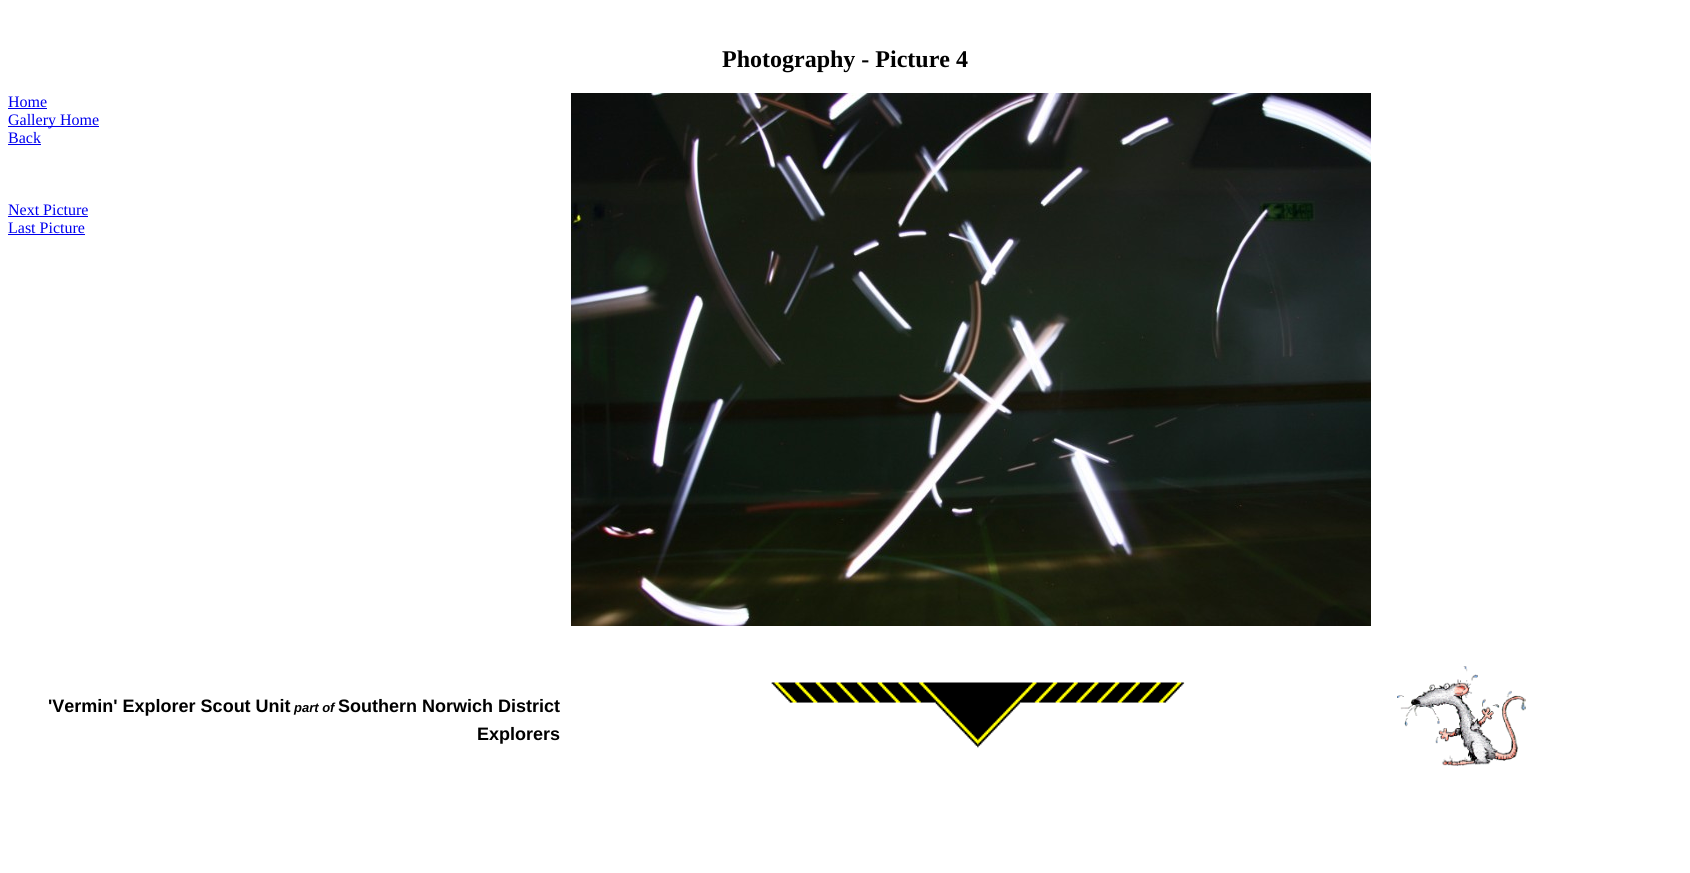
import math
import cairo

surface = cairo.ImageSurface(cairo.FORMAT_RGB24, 1690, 873)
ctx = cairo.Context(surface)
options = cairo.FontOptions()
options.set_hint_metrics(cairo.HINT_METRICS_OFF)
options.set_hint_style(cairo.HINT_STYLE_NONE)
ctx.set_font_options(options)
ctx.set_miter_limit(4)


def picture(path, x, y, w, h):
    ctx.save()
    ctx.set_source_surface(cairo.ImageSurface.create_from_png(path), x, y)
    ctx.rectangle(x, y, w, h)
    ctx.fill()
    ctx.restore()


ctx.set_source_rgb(1, 1, 1)
ctx.paint()
ctx.select_font_face("Liberation Serif", cairo.FONT_SLANT_NORMAL, cairo.FONT_WEIGHT_BOLD)
ctx.set_font_size(24)
ctx.set_source_rgb(0, 0, 0)
ctx.move_to(722, 67)
ctx.show_text("Photography - Picture 4")
ctx.select_font_face("Liberation Serif")
ctx.set_font_size(16)
ctx.set_source_rgb(0, 0, 0.933)
ctx.move_to(8, 107)
ctx.show_text("Home")
ctx.rectangle(8, 108, 39, 1)
ctx.fill()
ctx.rectangle(8, 126, 91, 1)
ctx.fill()
ctx.move_to(8, 125)
ctx.show_text("Gallery Home")
ctx.move_to(8, 143)
ctx.show_text("Back")
ctx.rectangle(8, 144, 33, 1)
ctx.fill()
ctx.move_to(8, 215)
ctx.show_text("Next Picture")
ctx.rectangle(8, 216, 80, 1)
ctx.fill()
ctx.move_to(8, 233)
ctx.show_text("Last Picture")
ctx.rectangle(8, 234, 77, 1)
ctx.fill()
picture("img1.png", 571, 93, 800, 533)
ctx.select_font_face("Liberation Sans", cairo.FONT_SLANT_NORMAL, cairo.FONT_WEIGHT_BOLD)
ctx.set_font_size(18)
ctx.set_source_rgb(0, 0, 0)
ctx.move_to(48, 712)
ctx.show_text("'Vermin' Explorer Scout Unit")
ctx.select_font_face("Liberation Sans", cairo.FONT_SLANT_ITALIC, cairo.FONT_WEIGHT_BOLD)
ctx.set_font_size(13)
ctx.move_to(294, 712)
ctx.show_text("part of")
ctx.select_font_face("Liberation Sans", cairo.FONT_SLANT_NORMAL, cairo.FONT_WEIGHT_BOLD)
ctx.set_font_size(18)
ctx.move_to(338, 712)
ctx.show_text("Southern Norwich District")
ctx.move_to(477, 740)
ctx.show_text("Explorers")
picture("img2.png", 771, 682, 414, 66)
picture("img3.png", 1397, 666, 129, 100)
surface.write_to_png("page.png")
